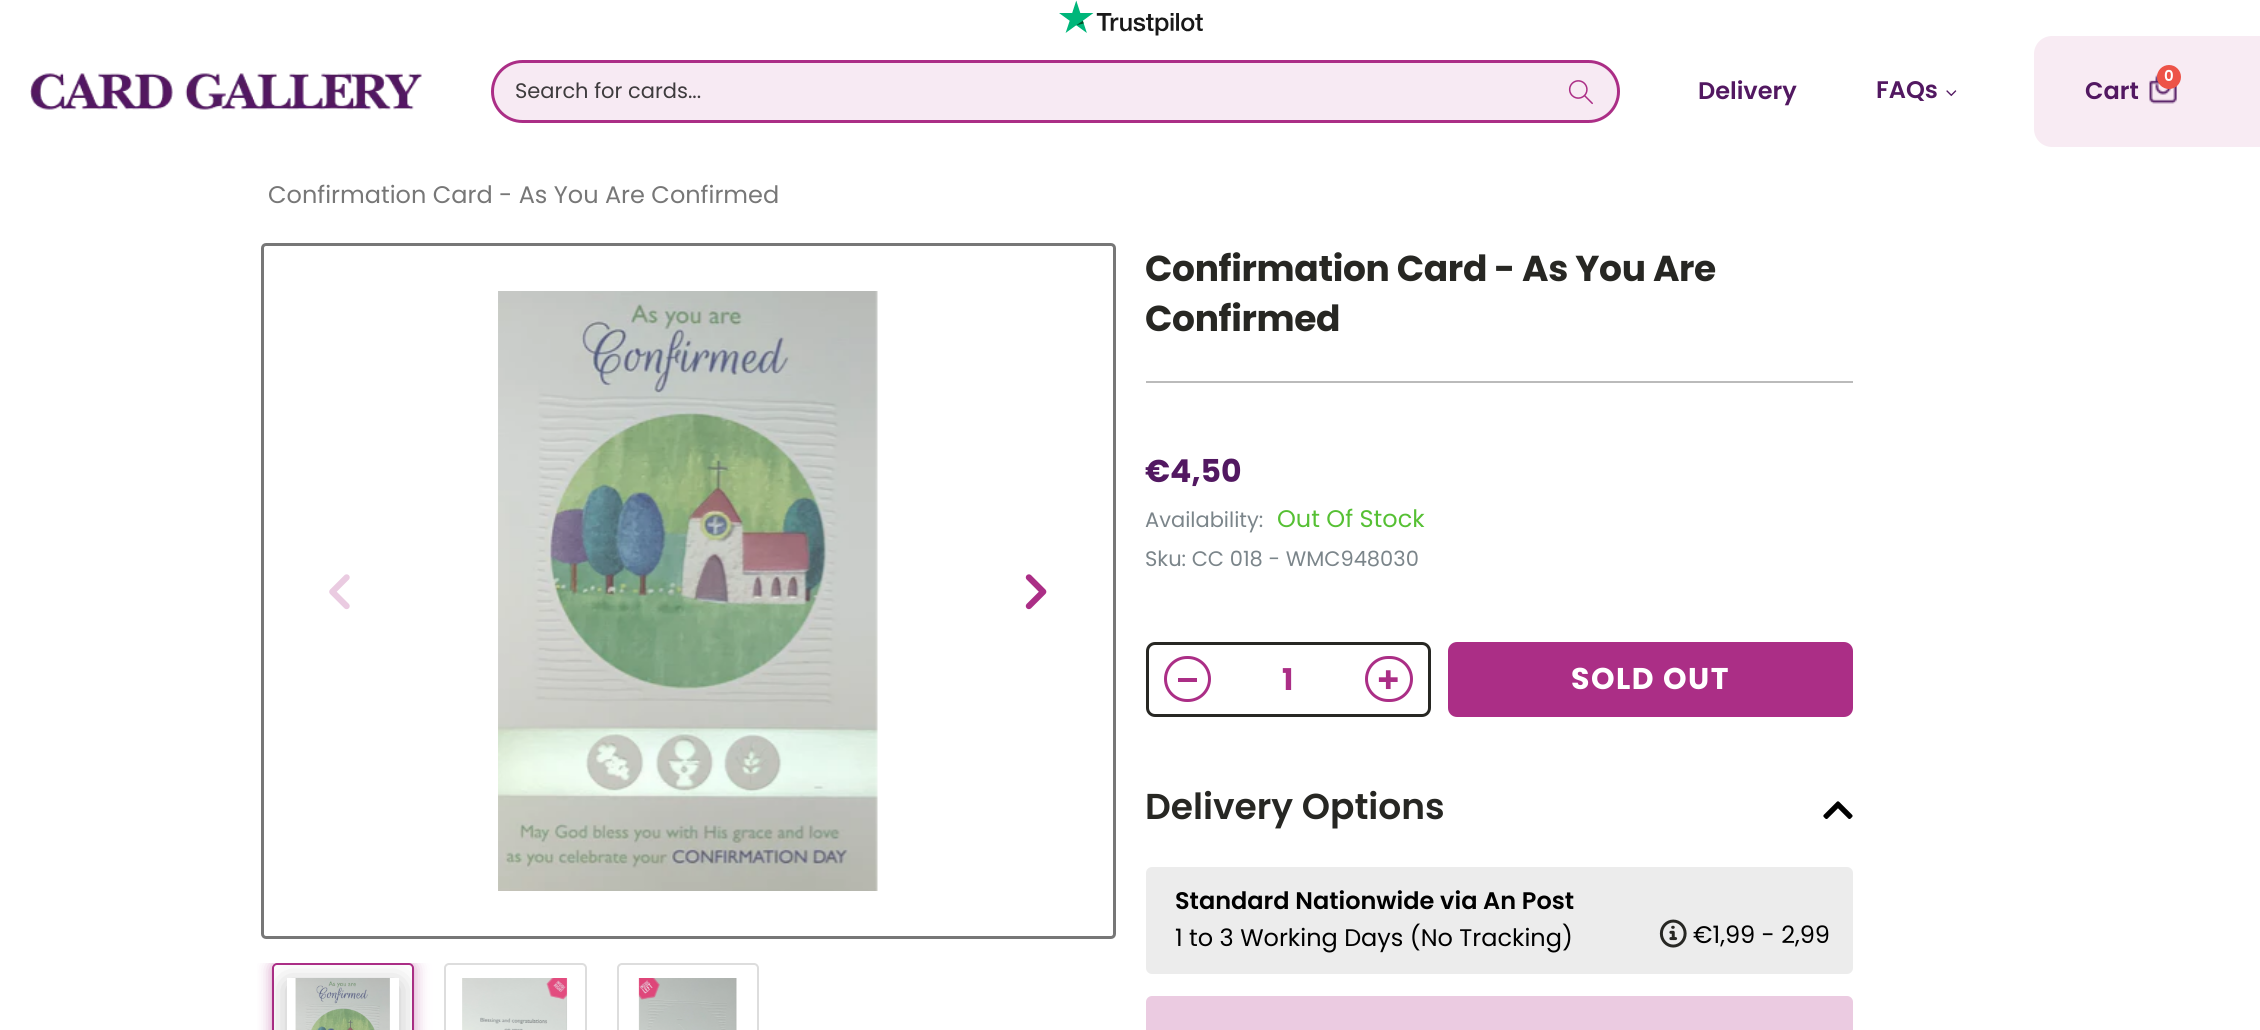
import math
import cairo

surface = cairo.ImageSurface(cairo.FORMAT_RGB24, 2260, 1030)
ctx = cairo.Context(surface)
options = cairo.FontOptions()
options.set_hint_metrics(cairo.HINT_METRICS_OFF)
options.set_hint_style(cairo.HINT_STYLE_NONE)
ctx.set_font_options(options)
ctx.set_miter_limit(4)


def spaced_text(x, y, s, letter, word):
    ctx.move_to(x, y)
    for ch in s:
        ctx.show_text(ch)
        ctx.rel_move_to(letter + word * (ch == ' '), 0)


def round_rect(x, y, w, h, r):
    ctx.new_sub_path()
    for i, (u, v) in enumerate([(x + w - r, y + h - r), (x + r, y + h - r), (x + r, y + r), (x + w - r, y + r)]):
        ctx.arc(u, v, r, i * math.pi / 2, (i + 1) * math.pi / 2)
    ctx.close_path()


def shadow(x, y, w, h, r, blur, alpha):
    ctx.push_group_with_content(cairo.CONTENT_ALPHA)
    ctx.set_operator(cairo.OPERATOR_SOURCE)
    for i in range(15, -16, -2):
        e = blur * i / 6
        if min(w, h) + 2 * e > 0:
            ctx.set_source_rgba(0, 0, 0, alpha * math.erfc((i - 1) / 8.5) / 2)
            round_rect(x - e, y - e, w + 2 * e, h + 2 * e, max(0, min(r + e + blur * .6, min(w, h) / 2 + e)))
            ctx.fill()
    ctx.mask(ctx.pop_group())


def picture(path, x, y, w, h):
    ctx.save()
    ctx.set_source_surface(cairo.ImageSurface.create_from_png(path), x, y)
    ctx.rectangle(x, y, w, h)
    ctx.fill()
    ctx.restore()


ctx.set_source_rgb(1, 1, 1)
ctx.paint()
picture("img1.png", 1059, 0, 144, 36)
picture("img2.png", 30, 73, 392, 37)
round_rect(492.5, 61.5, 1126, 60, 30)
ctx.set_source_rgb(0.671, 0.18, 0.525)
ctx.set_line_width(3)
ctx.stroke()
ctx.set_source_rgba(0.671, 0.18, 0.525, 0.1)
round_rect(494, 63, 1123, 57, 28.5)
ctx.fill()
ctx.select_font_face("Poppins")
ctx.set_font_size(21)
ctx.set_source_rgb(0.243, 0.231, 0.239)
ctx.move_to(515, 98)
ctx.show_text("Search for cards...")
picture("img3.png", 1568, 80, 25, 25)
ctx.select_font_face("Poppins SemiBold")
ctx.set_font_size(24)
ctx.set_source_rgb(0.322, 0.094, 0.38)
ctx.move_to(1698, 99)
ctx.show_text("Delivery")
ctx.move_to(1876, 98)
ctx.show_text("FAQs")
picture("img4.png", 1946, 90, 11, 7)
ctx.set_source_rgb(0.969, 0.918, 0.953)
ctx.new_path()
ctx.move_to(2052, 36)
ctx.line_to(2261, 36)
ctx.line_to(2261, 147)
ctx.line_to(2052, 147)
ctx.curve_to(2042, 147, 2034, 139, 2034, 129)
ctx.line_to(2034, 54)
ctx.curve_to(2034, 44, 2042, 36, 2052, 36)
ctx.close_path()
ctx.fill()
picture("img5.png", 2149, 73, 28, 31)
ctx.set_source_rgb(0.929, 0.325, 0.282)
ctx.arc(2169, 77, 12, 0, 2 * math.pi)
ctx.fill()
ctx.set_font_size(15)
ctx.set_source_rgb(1, 1, 1)
ctx.move_to(2164, 81)
ctx.show_text("0")
ctx.set_font_size(24)
ctx.set_source_rgb(0.322, 0.094, 0.38)
ctx.move_to(2085, 99)
ctx.show_text("Cart")
ctx.save()
ctx.rectangle(269, 177, 1732, 66)
ctx.clip()
ctx.select_font_face("Poppins")
ctx.set_source_rgb(0.467, 0.467, 0.467)
ctx.move_to(268, 203)
ctx.show_text("Confirmation Card - As You Are Confirmed")
ctx.restore()
round_rect(262.5, 244.5, 852, 693, 3.5)
ctx.set_source_rgb(0.467, 0.467, 0.467)
ctx.stroke()
picture("img6.png", 498, 291, 380, 600)
picture("img7.png", 329, 574, 21, 36)
picture("img8.png", 1025, 574, 22, 36)
ctx.save()
ctx.rectangle(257, 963, 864, 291)
ctx.clip()
ctx.set_fill_rule(cairo.FILL_RULE_EVEN_ODD)
ctx.new_path()
ctx.move_to(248, 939)
ctx.line_to(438, 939)
ctx.line_to(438, 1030)
ctx.line_to(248, 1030)
ctx.close_path()
ctx.move_to(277, 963)
ctx.line_to(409, 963)
ctx.curve_to(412, 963, 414, 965, 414, 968)
ctx.line_to(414, 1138)
ctx.curve_to(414, 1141, 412, 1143, 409, 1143)
ctx.line_to(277, 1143)
ctx.curve_to(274, 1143, 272, 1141, 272, 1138)
ctx.line_to(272, 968)
ctx.curve_to(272, 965, 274, 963, 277, 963)
ctx.close_path()
ctx.clip()
ctx.set_source_rgb(0.671, 0.18, 0.525)
shadow(272, 963, 142, 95, 5, 7.5, 0.5)
ctx.restore()
round_rect(273, 964, 140, 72, 4)
ctx.set_source_rgb(0.671, 0.18, 0.525)
ctx.set_line_width(2)
ctx.stroke()
ctx.save()
round_rect(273, 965, 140, 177, 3)
ctx.clip()
ctx.set_fill_rule(cairo.FILL_RULE_EVEN_ODD)
ctx.new_path()
ctx.move_to(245, 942)
ctx.line_to(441, 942)
ctx.line_to(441, 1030)
ctx.line_to(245, 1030)
ctx.close_path()
ctx.move_to(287, 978)
ctx.line_to(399, 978)
ctx.line_to(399, 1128)
ctx.line_to(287, 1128)
ctx.close_path()
ctx.clip()
ctx.set_source_rgb(0, 0, 0)
shadow(287, 984, 112, 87, 0, 13.5, 0.25)
ctx.restore()
picture("img9.png", 295, 978, 95, 52)
round_rect(445, 964, 141, 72, 4)
ctx.set_source_rgb(0.867, 0.867, 0.867)
ctx.stroke()
picture("img10.png", 462, 978, 106, 52)
round_rect(618, 964, 140, 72, 4)
ctx.stroke()
picture("img11.png", 638, 978, 99, 52)
ctx.set_source_rgb(0.733, 0.733, 0.733)
ctx.rectangle(1146, 381, 707, 2)
ctx.fill()
ctx.select_font_face("Poppins", cairo.FONT_SLANT_NORMAL, cairo.FONT_WEIGHT_BOLD)
ctx.set_font_size(36)
ctx.set_source_rgb(0.153, 0.153, 0.137)
spaced_text(1145, 281, "Confirmation Card - As You Are", -0.35, 0)
spaced_text(1145, 331, "Confirmed", -0.35, 0)
ctx.set_font_size(31.5)
ctx.set_source_rgb(0.322, 0.094, 0.38)
ctx.move_to(1145, 482)
ctx.show_text("€4,50")
ctx.select_font_face("Poppins")
ctx.set_font_size(21)
ctx.set_source_rgb(0.482, 0.522, 0.541)
ctx.move_to(1145, 527)
ctx.show_text("Availability:")
ctx.set_font_size(24)
ctx.set_source_rgb(0.337, 0.753, 0.204)
ctx.move_to(1277, 527)
ctx.show_text("Out Of Stock")
ctx.set_font_size(21)
ctx.set_source_rgb(0.482, 0.522, 0.541)
ctx.move_to(1145, 566)
ctx.show_text("Sku: CC 018 - WMC948030")
round_rect(1147.5, 643.5, 282, 72, 7.5)
ctx.set_source_rgb(0.153, 0.153, 0.137)
ctx.set_line_width(3)
ctx.stroke()
round_rect(1165.5, 657.5, 44, 43, 21.5)
ctx.set_source_rgb(0.671, 0.18, 0.525)
ctx.stroke()
ctx.rectangle(1178, 678, 19, 4)
ctx.fill()
round_rect(1366.5, 657.5, 45, 43, 21.5)
ctx.stroke()
picture("img12.png", 1378, 670, 20, 20)
ctx.select_font_face("Poppins", cairo.FONT_SLANT_NORMAL, cairo.FONT_WEIGHT_BOLD)
ctx.set_font_size(30)
ctx.move_to(1282, 690)
ctx.show_text("1")
round_rect(1451, 645, 399, 69, 6)
ctx.fill_preserve()
ctx.set_line_width(6)
ctx.stroke()
ctx.set_source_rgb(1, 1, 1)
spaced_text(1571, 689, "SOLD OUT", 1.5, 0)
ctx.select_font_face("Poppins SemiBold")
ctx.set_font_size(36)
ctx.set_source_rgb(0.153, 0.153, 0.137)
ctx.move_to(1145, 819)
ctx.show_text("Delivery Options")
picture("img13.png", 1823, 801, 30, 18)
ctx.set_source_rgb(0.922, 0.922, 0.922)
round_rect(1146, 867, 707, 107, 6)
ctx.fill()
ctx.set_font_size(24)
ctx.set_source_rgb(0, 0, 0)
ctx.move_to(1175, 909)
ctx.show_text("Standard Nationwide via An Post")
ctx.select_font_face("Poppins")
ctx.move_to(1175, 946)
ctx.show_text("1 to 3 Working Days (No Tracking)")
picture("img14.png", 1659, 919, 28, 29)
ctx.move_to(1693, 943)
ctx.show_text("€1,99 - 2,99")
ctx.set_source_rgb(0.918, 0.796, 0.882)
round_rect(1146, 996, 707, 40, 6)
ctx.fill()
surface.write_to_png("page.png")
